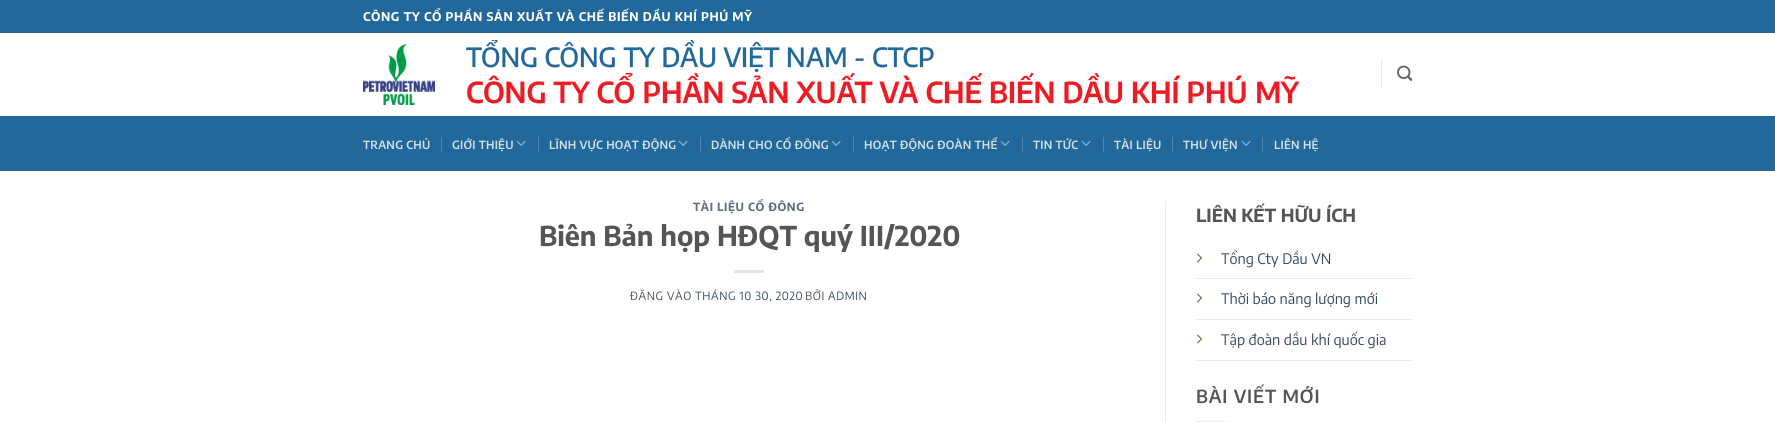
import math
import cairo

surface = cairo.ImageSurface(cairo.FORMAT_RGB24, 1775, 422)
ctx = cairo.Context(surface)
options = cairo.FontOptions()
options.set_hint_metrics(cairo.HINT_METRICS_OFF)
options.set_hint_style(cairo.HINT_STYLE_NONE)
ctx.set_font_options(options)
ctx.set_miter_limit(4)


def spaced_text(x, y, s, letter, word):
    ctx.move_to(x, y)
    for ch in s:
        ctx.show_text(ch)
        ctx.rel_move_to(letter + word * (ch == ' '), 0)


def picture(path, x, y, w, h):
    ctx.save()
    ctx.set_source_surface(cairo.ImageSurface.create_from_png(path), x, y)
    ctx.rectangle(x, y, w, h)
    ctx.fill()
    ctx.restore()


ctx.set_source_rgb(1, 1, 1)
ctx.paint()
ctx.set_source_rgb(0.137, 0.408, 0.608)
ctx.rectangle(0, 0, 1775, 33)
ctx.fill()
ctx.select_font_face("Encode Sans Condensed", cairo.FONT_SLANT_NORMAL, cairo.FONT_WEIGHT_BOLD)
ctx.set_font_size(12)
ctx.set_source_rgb(1, 1, 1)
spaced_text(363, 21, "CÔNG TY CỔ PHẦN SẢN XUẤT VÀ CHẾ BIẾN DẦU KHÍ PHÚ MỸ", 0.6, 0)
picture("img1.png", 363, 44, 72, 61)
picture("img2.png", 466, 40, 834, 64)
ctx.set_source_rgb(0.902, 0.902, 0.902)
ctx.rectangle(1381, 59, 1, 30)
ctx.fill()
picture("img3.png", 1397, 65, 16, 16)
ctx.set_source_rgb(0.137, 0.408, 0.608)
ctx.rectangle(0, 116, 1775, 55)
ctx.fill()
ctx.set_source_rgb(0.153, 0.396, 0.576)
ctx.rectangle(363, 116, 1050, 1)
ctx.fill()
ctx.select_font_face("Encode Sans Condensed SemiBold")
ctx.set_font_size(11.25)
ctx.set_source_rgb(0.827, 0.882, 0.922)
spaced_text(363, 149, "TRANG CHỦ", 0.25, 0)
ctx.set_source_rgb(0.31, 0.525, 0.686)
ctx.rectangle(441, 137, 1, 15)
ctx.fill()
ctx.set_source_rgb(0.827, 0.882, 0.922)
spaced_text(452, 149, "GIỚI THIỆU", 0.25, 0)
picture("img4.png", 516, 140, 10, 6)
ctx.set_source_rgb(0.31, 0.525, 0.686)
ctx.rectangle(538, 137, 1, 15)
ctx.fill()
ctx.set_source_rgb(0.827, 0.882, 0.922)
spaced_text(549, 149, "LĨNH VỰC HOẠT ĐỘNG", 0.25, 0)
picture("img4.png", 678, 140, 10, 6)
ctx.set_source_rgb(0.31, 0.525, 0.686)
ctx.rectangle(700, 137, 1, 15)
ctx.fill()
ctx.set_source_rgb(0.827, 0.882, 0.922)
spaced_text(711, 149, "DÀNH CHO CỔ ĐÔNG", 0.25, 0)
picture("img4.png", 831, 140, 10, 6)
ctx.set_source_rgb(0.31, 0.525, 0.686)
ctx.rectangle(853, 137, 1, 15)
ctx.fill()
ctx.set_source_rgb(0.827, 0.882, 0.922)
spaced_text(864, 149, "HOẠT ĐỘNG ĐOÀN THỂ", 0.25, 0)
picture("img4.png", 1000, 140, 10, 6)
ctx.set_source_rgb(0.31, 0.525, 0.686)
ctx.rectangle(1022, 137, 1, 15)
ctx.fill()
ctx.set_source_rgb(0.827, 0.882, 0.922)
spaced_text(1033, 149, "TIN TỨC", 0.25, 0)
picture("img4.png", 1081, 140, 10, 6)
ctx.set_source_rgb(0.31, 0.525, 0.686)
ctx.rectangle(1103, 137, 1, 15)
ctx.fill()
ctx.set_source_rgb(0.827, 0.882, 0.922)
spaced_text(1114, 149, "TÀI LIỆU", 0.25, 0)
ctx.set_source_rgb(0.31, 0.525, 0.686)
ctx.rectangle(1172, 137, 1, 15)
ctx.fill()
ctx.set_source_rgb(0.827, 0.882, 0.922)
spaced_text(1183, 149, "THƯ VIỆN", 0.25, 0)
picture("img4.png", 1241, 140, 10, 6)
ctx.set_source_rgb(0.31, 0.525, 0.686)
ctx.rectangle(1262, 137, 1, 15)
ctx.fill()
ctx.set_source_rgb(0.827, 0.882, 0.922)
spaced_text(1274, 149, "LIÊN HỆ", 0.25, 0)
ctx.select_font_face("Encode Sans Condensed", cairo.FONT_SLANT_NORMAL, cairo.FONT_WEIGHT_BOLD)
ctx.set_source_rgb(0.361, 0.427, 0.506)
spaced_text(693, 211, "TÀI LIỆU CỔ ĐÔNG", 0.6, 0)
ctx.set_font_size(27.25)
ctx.set_source_rgb(0.333, 0.333, 0.333)
ctx.move_to(539, 246)
ctx.show_text("Biên Bản họp HĐQT quý III/2020")
ctx.set_source_rgb(0.902, 0.902, 0.902)
ctx.rectangle(734, 270, 30, 3)
ctx.fill()
ctx.select_font_face("Encode Sans Condensed")
ctx.set_font_size(11.25)
ctx.set_source_rgb(0.29, 0.29, 0.29)
spaced_text(630, 300, "ĐĂNG VÀO", 0.6, 0)
ctx.set_source_rgb(0.2, 0.282, 0.384)
spaced_text(695, 300, "THÁNG 10 30, 2020", 0.6, 0)
ctx.set_source_rgb(0.29, 0.29, 0.29)
spaced_text(805, 300, "BỞI", 0.6, 0)
ctx.set_source_rgb(0.2, 0.282, 0.384)
spaced_text(828, 300, "ADMIN", 0.6, 0)
ctx.set_source_rgb(0.925, 0.925, 0.925)
ctx.rectangle(1165, 201, 1, 221)
ctx.fill()
ctx.select_font_face("Encode Sans Condensed", cairo.FONT_SLANT_NORMAL, cairo.FONT_WEIGHT_BOLD)
ctx.set_font_size(18)
ctx.set_source_rgb(0.333, 0.333, 0.333)
ctx.move_to(1196, 222)
ctx.show_text("LIÊN KẾT HỮU ÍCH")
ctx.set_source_rgb(0.925, 0.925, 0.925)
ctx.rectangle(1196, 278, 217, 1)
ctx.fill()
picture("img5.png", 1197, 253, 6, 10)
ctx.select_font_face("Encode Sans Condensed")
ctx.set_font_size(14.4)
ctx.set_source_rgb(0.2, 0.282, 0.384)
ctx.move_to(1221, 264)
ctx.show_text("Tổng Cty Dầu VN")
ctx.set_source_rgb(0.925, 0.925, 0.925)
ctx.rectangle(1196, 319, 217, 1)
ctx.fill()
picture("img5.png", 1197, 293, 6, 10)
ctx.set_source_rgb(0.2, 0.282, 0.384)
ctx.move_to(1221, 304)
ctx.show_text("Thời báo năng lượng mới")
ctx.set_source_rgb(0.925, 0.925, 0.925)
ctx.rectangle(1196, 360, 217, 1)
ctx.fill()
picture("img5.png", 1197, 334, 6, 10)
ctx.set_source_rgb(0.2, 0.282, 0.384)
ctx.move_to(1221, 345)
ctx.show_text("Tập đoàn dầu khí quốc gia")
ctx.select_font_face("Encode Sans Condensed SemiBold")
ctx.set_font_size(18)
ctx.set_source_rgb(0.333, 0.333, 0.333)
spaced_text(1196, 403, "BÀI VIẾT MỚI", 0.9, 0)
ctx.set_source_rgb(0.902, 0.902, 0.902)
ctx.rectangle(1196, 421, 30, 1)
ctx.fill()
surface.write_to_png("page.png")
